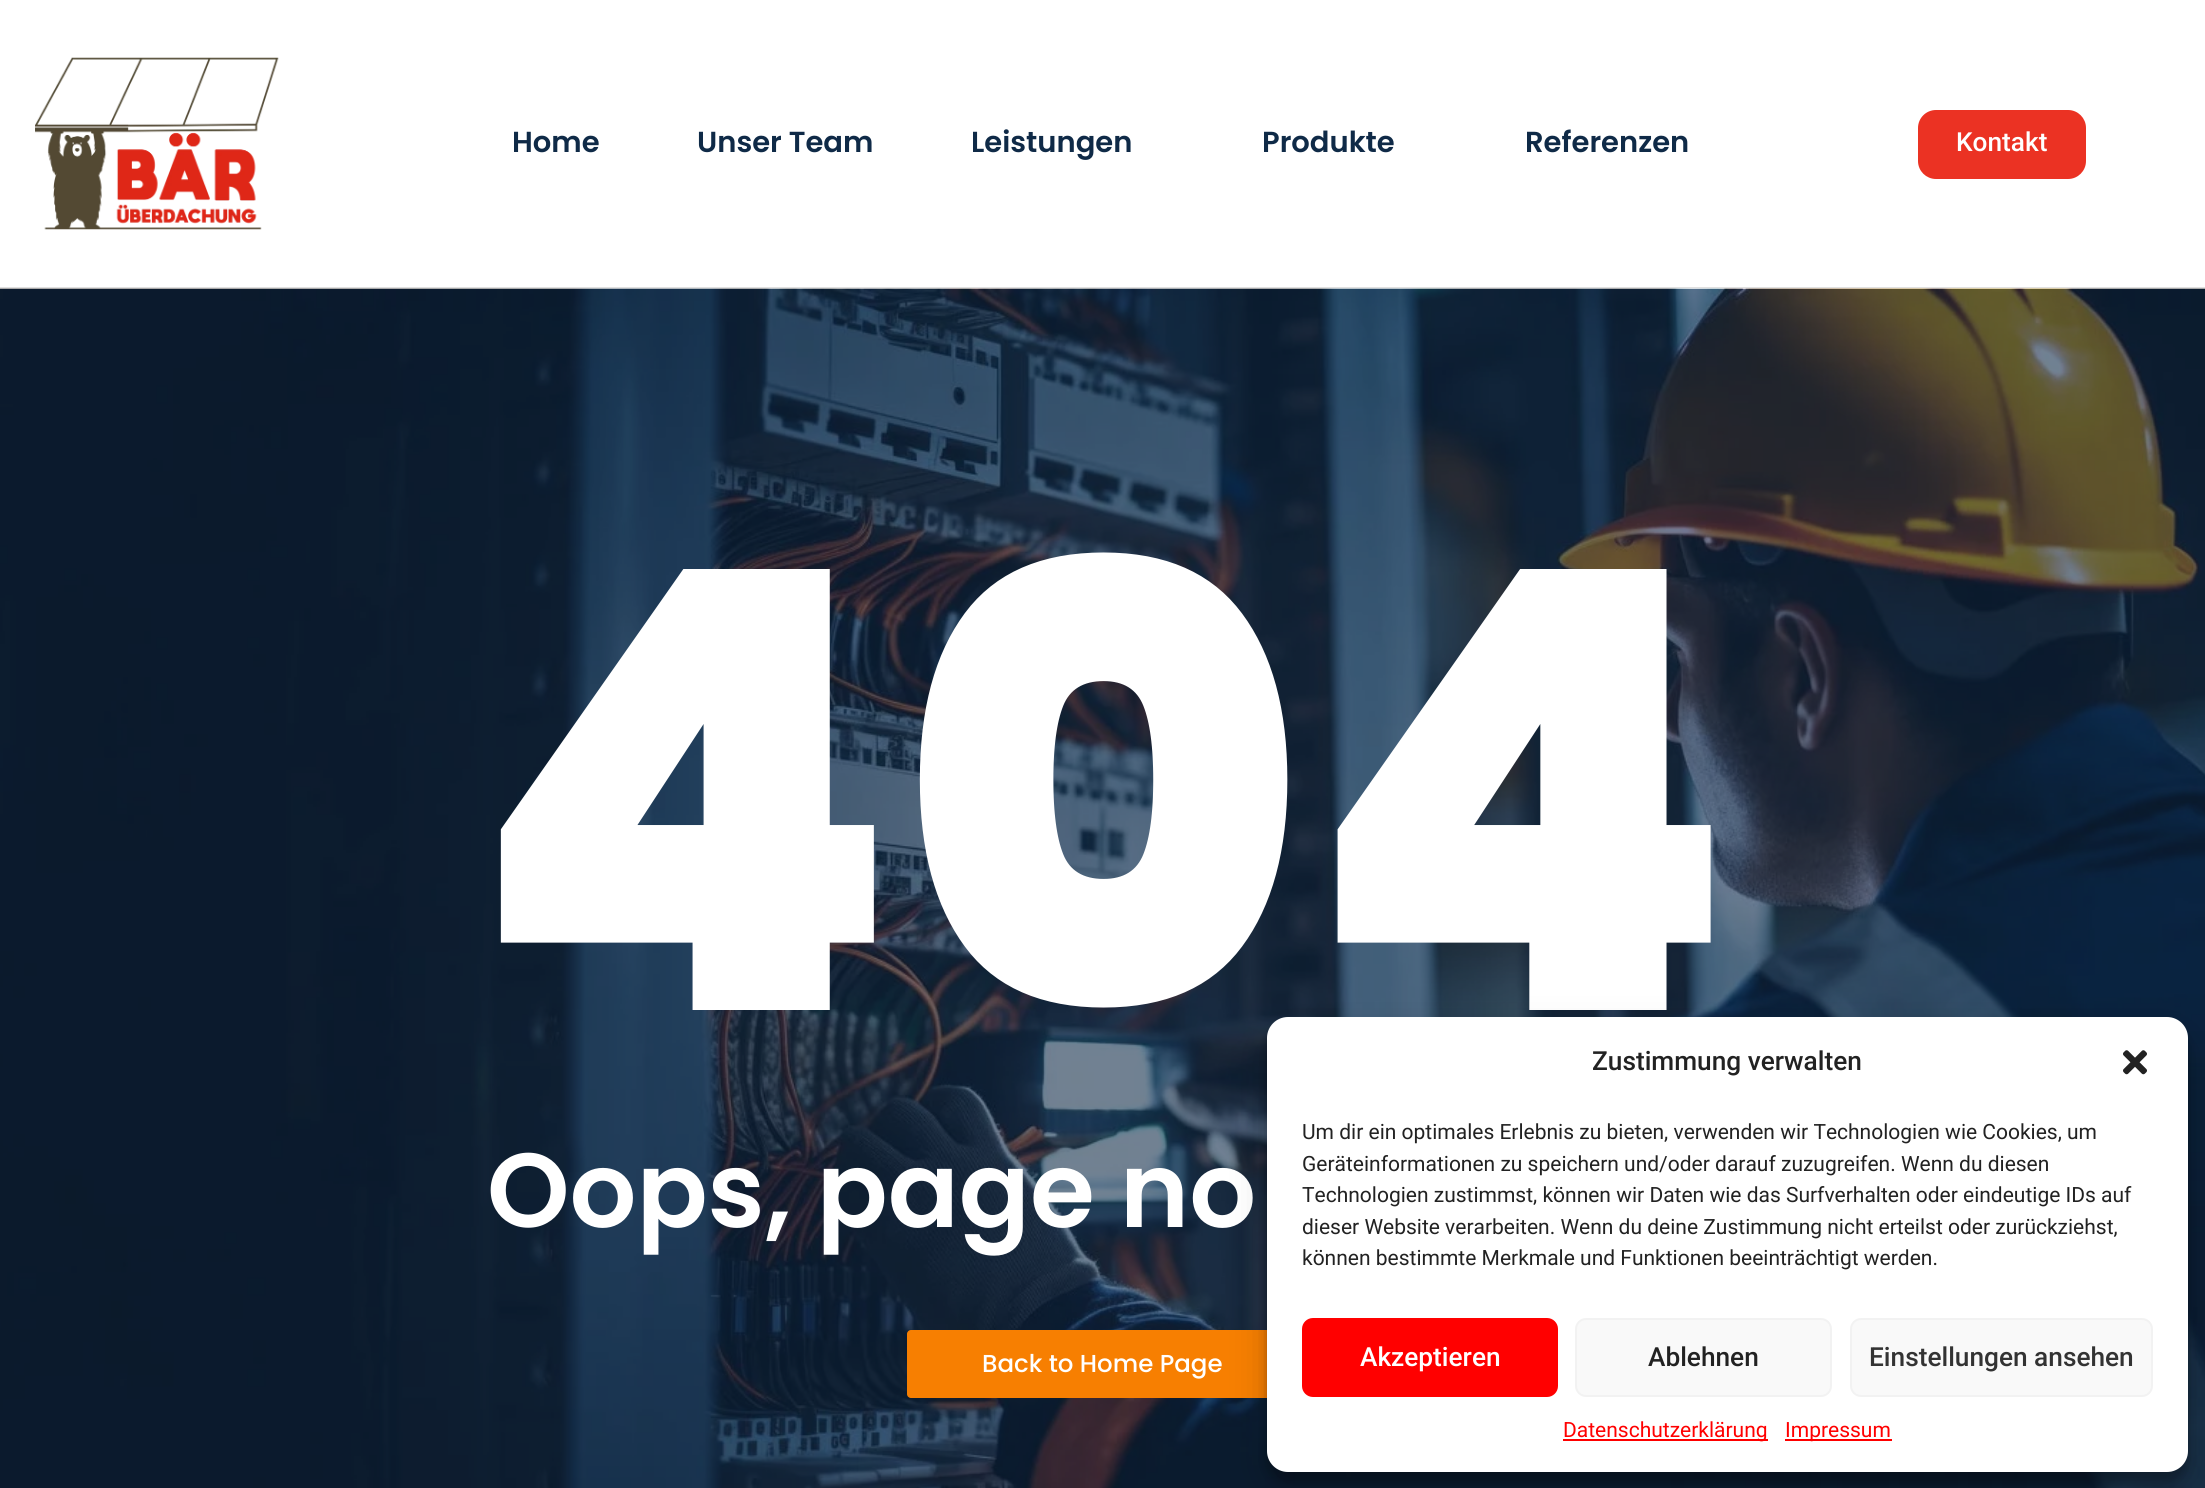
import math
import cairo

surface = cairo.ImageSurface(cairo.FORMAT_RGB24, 2205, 1488)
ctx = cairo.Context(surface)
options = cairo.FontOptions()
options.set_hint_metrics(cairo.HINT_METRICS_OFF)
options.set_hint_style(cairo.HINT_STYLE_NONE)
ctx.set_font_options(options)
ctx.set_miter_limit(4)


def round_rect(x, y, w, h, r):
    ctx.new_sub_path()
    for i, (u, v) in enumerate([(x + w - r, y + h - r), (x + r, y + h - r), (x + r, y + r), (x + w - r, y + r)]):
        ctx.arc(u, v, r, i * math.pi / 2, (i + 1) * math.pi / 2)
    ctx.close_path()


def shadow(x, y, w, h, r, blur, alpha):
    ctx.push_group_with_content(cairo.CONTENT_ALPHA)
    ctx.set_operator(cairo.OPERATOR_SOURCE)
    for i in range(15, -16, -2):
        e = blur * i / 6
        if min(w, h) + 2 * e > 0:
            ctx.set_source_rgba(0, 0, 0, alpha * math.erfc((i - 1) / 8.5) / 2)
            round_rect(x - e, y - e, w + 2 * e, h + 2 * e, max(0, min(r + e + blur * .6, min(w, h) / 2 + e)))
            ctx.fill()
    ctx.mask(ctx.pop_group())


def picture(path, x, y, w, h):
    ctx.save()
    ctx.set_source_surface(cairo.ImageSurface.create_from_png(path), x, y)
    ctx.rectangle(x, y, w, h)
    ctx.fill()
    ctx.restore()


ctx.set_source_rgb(1, 1, 1)
ctx.paint()
ctx.set_source_rgb(0.878, 0.878, 0.878)
ctx.rectangle(0, 287, 2205, 2)
ctx.fill()
picture("img1.png", 35, 57, 244, 173)
ctx.select_font_face("Poppins SemiBold")
ctx.set_font_size(29)
ctx.set_source_rgb(0.059, 0.165, 0.278)
ctx.move_to(512, 152)
ctx.show_text("Home")
ctx.move_to(697, 152)
ctx.show_text("Unser Team")
ctx.move_to(971, 152)
ctx.show_text("Leistungen")
ctx.move_to(1262, 152)
ctx.show_text("Produkte")
ctx.move_to(1525, 152)
ctx.show_text("Referenzen")
ctx.set_source_rgb(0.918, 0.196, 0.137)
round_rect(1920, 112, 164, 65, 16)
ctx.fill_preserve()
ctx.set_line_width(4)
ctx.stroke()
ctx.select_font_face("Roboto Medium")
ctx.set_font_size(26.25)
ctx.set_source_rgb(1, 1, 1)
ctx.move_to(1956, 151)
ctx.show_text("Kontakt")
picture("img2.png", 0, 288, 2205, 1200)
ctx.select_font_face("Poppins Black")
ctx.set_font_size(612.5)
ctx.move_to(469, 1010)
ctx.show_text("404")
ctx.select_font_face("Poppins SemiBold")
ctx.set_font_size(105)
ctx.move_to(487, 1227)
ctx.show_text("Oops, page no")
ctx.set_source_rgb(0.965, 0.498, 0.004)
round_rect(907, 1330, 392, 68, 4)
ctx.fill()
ctx.select_font_face("Poppins Medium")
ctx.set_font_size(24.5)
ctx.set_source_rgb(1, 1, 1)
ctx.move_to(982, 1372)
ctx.show_text("Back to Home Page")
ctx.set_source_rgb(0, 0, 0)
shadow(1267, 1027, 921, 455, 21, 5, 0.23)
shadow(1267, 1034, 921, 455, 21, 17.5, 0.19)
ctx.set_source_rgb(1, 1, 1)
round_rect(1267, 1017, 921, 455, 21)
ctx.fill()
ctx.select_font_face("Roboto Medium")
ctx.set_font_size(26.25)
ctx.set_source_rgb(0.133, 0.133, 0.133)
ctx.move_to(1592, 1070)
ctx.show_text("Zustimmung verwalten")
picture("img3.png", 2123, 1050, 24, 25)
ctx.select_font_face("Roboto")
ctx.set_font_size(21)
ctx.move_to(1302, 1139)
ctx.show_text("Um dir ein optimales Erlebnis zu bieten, verwenden wir Technologien wie Cookies, um")
ctx.move_to(1302, 1171)
ctx.show_text("Geräteinformationen zu speichern und/oder darauf zuzugreifen. Wenn du diesen")
ctx.move_to(1302, 1202)
ctx.show_text("Technologien zustimmst, können wir Daten wie das Surfverhalten oder eindeutige IDs auf")
ctx.move_to(1302, 1234)
ctx.show_text("dieser Website verarbeiten. Wenn du deine Zustimmung nicht erteilst oder zurückziehst,")
ctx.move_to(1302, 1265)
ctx.show_text("können bestimmte Merkmale und Funktionen beeinträchtigt werden.")
ctx.set_source_rgb(1, 0, 0)
round_rect(1303, 1319, 254, 77, 10)
ctx.fill_preserve()
ctx.set_line_width(2)
ctx.stroke()
ctx.select_font_face("Roboto Medium")
ctx.set_font_size(26.25)
ctx.set_source_rgb(1, 1, 1)
ctx.move_to(1360, 1366)
ctx.show_text("Akzeptieren")
ctx.set_source_rgb(0.976, 0.976, 0.976)
round_rect(1576, 1319, 255, 77, 10)
ctx.fill_preserve()
ctx.set_source_rgb(0.949, 0.949, 0.949)
ctx.stroke()
ctx.set_source_rgb(0.133, 0.133, 0.133)
ctx.move_to(1648, 1366)
ctx.show_text("Ablehnen")
ctx.set_source_rgb(0.976, 0.976, 0.976)
round_rect(1851, 1319, 301, 77, 10)
ctx.fill_preserve()
ctx.set_source_rgb(0.949, 0.949, 0.949)
ctx.stroke()
ctx.set_source_rgb(0.2, 0.2, 0.2)
ctx.move_to(1869, 1366)
ctx.show_text("Einstellungen ansehen")
ctx.set_source_rgb(1, 0, 0)
ctx.rectangle(1563, 1439, 205, 2)
ctx.fill()
ctx.select_font_face("Roboto")
ctx.set_font_size(21)
ctx.move_to(1563, 1437)
ctx.show_text("Datenschutzerklärung")
ctx.rectangle(1785, 1439, 107, 2)
ctx.fill()
ctx.move_to(1785, 1437)
ctx.show_text("Impressum")
surface.write_to_png("page.png")
